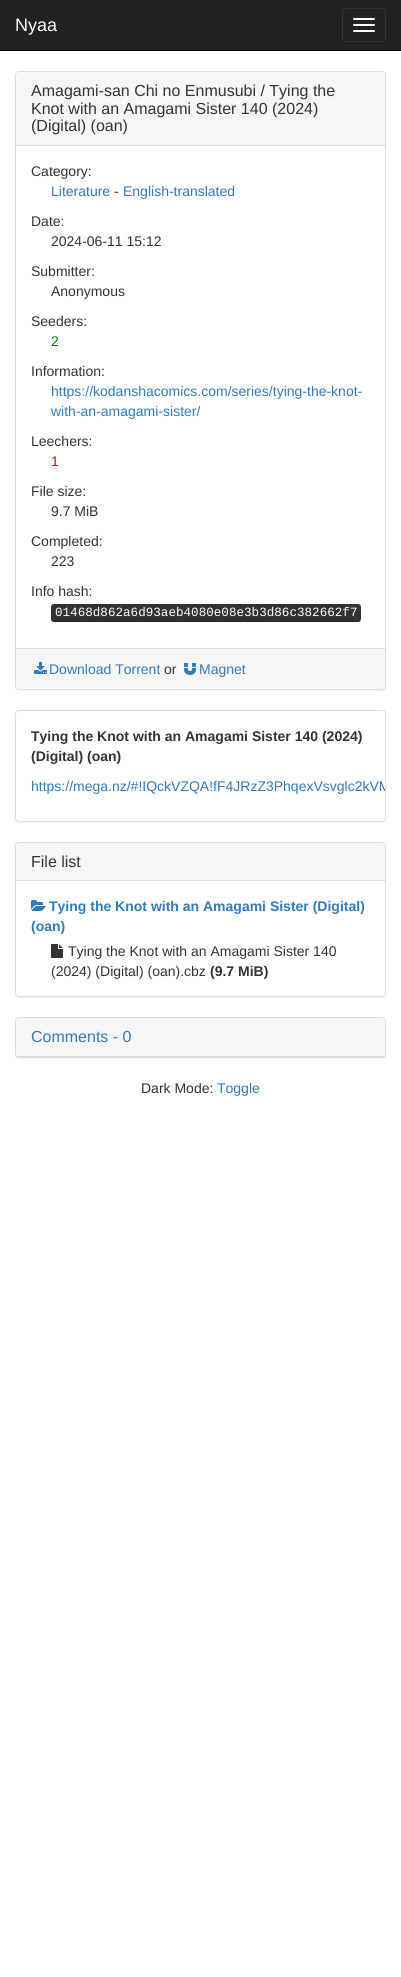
import math
import cairo

surface = cairo.ImageSurface(cairo.FORMAT_RGB24, 401, 1977)
ctx = cairo.Context(surface)
options = cairo.FontOptions()
options.set_hint_metrics(cairo.HINT_METRICS_OFF)
options.set_hint_style(cairo.HINT_STYLE_NONE)
ctx.set_font_options(options)
ctx.set_miter_limit(4)


def round_rect(x, y, w, h, r):
    ctx.new_sub_path()
    for i, (u, v) in enumerate([(x + w - r, y + h - r), (x + r, y + h - r), (x + r, y + r), (x + w - r, y + r)]):
        ctx.arc(u, v, r, i * math.pi / 2, (i + 1) * math.pi / 2)
    ctx.close_path()


def shadow(x, y, w, h, r, blur, alpha):
    ctx.push_group_with_content(cairo.CONTENT_ALPHA)
    ctx.set_operator(cairo.OPERATOR_SOURCE)
    for i in range(15, -16, -2):
        e = blur * i / 6
        if min(w, h) + 2 * e > 0:
            ctx.set_source_rgba(0, 0, 0, alpha * math.erfc((i - 1) / 8.5) / 2)
            round_rect(x - e, y - e, w + 2 * e, h + 2 * e, max(0, min(r + e + blur * .6, min(w, h) / 2 + e)))
            ctx.fill()
    ctx.mask(ctx.pop_group())


def picture(path, x, y, w, h):
    ctx.save()
    ctx.set_source_surface(cairo.ImageSurface.create_from_png(path), x, y)
    ctx.rectangle(x, y, w, h)
    ctx.fill()
    ctx.restore()


ctx.set_source_rgb(1, 1, 1)
ctx.paint()
ctx.set_source_rgb(0.133, 0.133, 0.133)
ctx.rectangle(0, 0, 401, 50)
ctx.fill()
ctx.set_source_rgb(0.031, 0.031, 0.031)
ctx.rectangle(0, 50, 401, 1)
ctx.fill()
ctx.select_font_face("Liberation Sans")
ctx.set_font_size(18)
ctx.set_source_rgb(1, 1, 1)
ctx.move_to(15, 31)
ctx.show_text("Nyaa")
round_rect(342.5, 8.5, 43, 33, 3.5)
ctx.set_source_rgb(0.2, 0.2, 0.2)
ctx.set_line_width(1)
ctx.stroke()
ctx.set_source_rgb(1, 1, 1)
round_rect(353, 18, 22, 2, 1)
ctx.fill()
round_rect(353, 24, 22, 2, 1)
ctx.fill()
round_rect(353, 30, 22, 2, 1)
ctx.fill()
ctx.set_source_rgb(0, 0, 0)
shadow(15, 72, 371, 619, 4, 0.5, 0.05)
ctx.set_source_rgb(1, 1, 1)
round_rect(15.5, 71.5, 370, 618, 3.5)
ctx.fill_preserve()
ctx.set_source_rgb(0.867, 0.867, 0.867)
ctx.stroke()
ctx.set_source_rgb(0.961, 0.961, 0.961)
ctx.new_path()
ctx.move_to(19, 72)
ctx.line_to(382, 72)
ctx.curve_to(383.5, 72, 385, 73.5, 385, 75)
ctx.line_to(385, 146)
ctx.line_to(16, 146)
ctx.line_to(16, 75)
ctx.curve_to(16, 73.5, 17.5, 72, 19, 72)
ctx.close_path()
ctx.fill()
ctx.set_source_rgb(0.867, 0.867, 0.867)
ctx.rectangle(16, 145, 369, 1)
ctx.fill()
ctx.set_font_size(16)
ctx.set_source_rgb(0.2, 0.2, 0.2)
ctx.move_to(31, 96)
ctx.show_text("Amagami-san Chi no Enmusubi / Tying the")
ctx.move_to(31, 114)
ctx.show_text("Knot with an Amagami Sister 140 (2024)")
ctx.move_to(31, 131)
ctx.show_text("(Digital) (oan)")
ctx.set_font_size(14)
ctx.move_to(31, 176)
ctx.show_text("Category:")
ctx.set_source_rgb(0.2, 0.478, 0.718)
ctx.move_to(51, 196)
ctx.show_text("Literature")
ctx.set_source_rgb(0.2, 0.2, 0.2)
ctx.move_to(114, 196)
ctx.show_text("-")
ctx.set_source_rgb(0.2, 0.478, 0.718)
ctx.move_to(123, 196)
ctx.show_text("English-translated")
ctx.set_source_rgb(0.2, 0.2, 0.2)
ctx.move_to(31, 226)
ctx.show_text("Date:")
ctx.move_to(51, 246)
ctx.show_text("2024-06-11 15:12")
ctx.move_to(31, 276)
ctx.show_text("Submitter:")
ctx.move_to(51, 296)
ctx.show_text("Anonymous")
ctx.move_to(31, 326)
ctx.show_text("Seeders:")
ctx.set_source_rgb(0, 0.502, 0)
ctx.move_to(51, 346)
ctx.show_text("2")
ctx.set_source_rgb(0.2, 0.2, 0.2)
ctx.move_to(31, 376)
ctx.show_text("Information:")
ctx.set_source_rgb(0.2, 0.478, 0.718)
ctx.move_to(51, 396)
ctx.show_text("https://kodanshacomics.com/series/tying-the-knot-")
ctx.move_to(51, 416)
ctx.show_text("with-an-amagami-sister/")
ctx.set_source_rgb(0.2, 0.2, 0.2)
ctx.move_to(31, 446)
ctx.show_text("Leechers:")
ctx.set_source_rgb(1, 0, 0)
ctx.move_to(51, 466)
ctx.show_text("1")
ctx.set_source_rgb(0.2, 0.2, 0.2)
ctx.move_to(31, 496)
ctx.show_text("File size:")
ctx.move_to(51, 516)
ctx.show_text("9.7 MiB")
ctx.move_to(31, 546)
ctx.show_text("Completed:")
ctx.move_to(51, 566)
ctx.show_text("223")
ctx.move_to(31, 596)
ctx.show_text("Info hash:")
round_rect(51, 604, 310, 18, 3)
ctx.fill()
ctx.select_font_face("Liberation Mono")
ctx.set_font_size(12.6)
ctx.set_source_rgb(1, 1, 1)
ctx.move_to(55, 616)
ctx.show_text("01468d862a6d93aeb4080e08e3b3d86c382662f7")
ctx.set_source_rgba(0, 0, 0, 0.25)
ctx.new_path()
ctx.move_to(51, 618)
ctx.curve_to(51, 620, 52, 622, 54, 622)
ctx.line_to(359, 622)
ctx.line_to(360, 621)
ctx.line_to(361, 618)
ctx.curve_to(361, 620, 360, 621, 358, 621)
ctx.line_to(54, 621)
ctx.curve_to(52, 621, 51, 620, 51, 618)
ctx.close_path()
ctx.fill()
ctx.set_source_rgb(0.961, 0.961, 0.961)
ctx.new_path()
ctx.move_to(16, 648)
ctx.line_to(385, 648)
ctx.line_to(385, 686)
ctx.curve_to(385, 687.5, 383.5, 689, 382, 689)
ctx.line_to(19, 689)
ctx.curve_to(17.5, 689, 16, 687.5, 16, 686)
ctx.close_path()
ctx.fill()
ctx.set_source_rgb(0.867, 0.867, 0.867)
ctx.rectangle(16, 648, 369, 1)
ctx.fill()
picture("img1.png", 34, 662, 13, 12)
ctx.select_font_face("Liberation Sans")
ctx.set_font_size(14)
ctx.set_source_rgb(0.2, 0.478, 0.718)
ctx.move_to(49, 674)
ctx.show_text("Download Torrent")
ctx.set_source_rgb(0.2, 0.2, 0.2)
ctx.move_to(164, 674)
ctx.show_text("or")
picture("img2.png", 184, 663, 12, 12)
ctx.set_source_rgb(0.2, 0.478, 0.718)
ctx.move_to(199, 674)
ctx.show_text("Magnet")
ctx.set_source_rgb(0, 0, 0)
shadow(15, 711, 371, 112, 4, 0.5, 0.05)
ctx.set_source_rgb(1, 1, 1)
round_rect(15.5, 710.5, 370, 111, 3.5)
ctx.fill_preserve()
ctx.set_source_rgb(0.867, 0.867, 0.867)
ctx.stroke()
ctx.select_font_face("Liberation Sans", cairo.FONT_SLANT_NORMAL, cairo.FONT_WEIGHT_BOLD)
ctx.set_source_rgb(0.2, 0.2, 0.2)
ctx.move_to(31, 741)
ctx.show_text("Tying the Knot with an Amagami Sister 140 (2024)")
ctx.move_to(31, 761)
ctx.show_text("(Digital) (oan)")
ctx.save()
ctx.rectangle(16, 711, 369, 110)
ctx.clip()
ctx.select_font_face("Liberation Sans")
ctx.set_source_rgb(0.2, 0.478, 0.718)
ctx.move_to(31, 791)
ctx.show_text("https://mega.nz/#!IQckVZQA!fF4JRzZ3PhqexVsvglc2kVM")
ctx.restore()
ctx.set_source_rgb(0, 0, 0)
shadow(15, 843, 371, 155, 4, 0.5, 0.05)
ctx.set_source_rgb(1, 1, 1)
round_rect(15.5, 842.5, 370, 154, 3.5)
ctx.fill_preserve()
ctx.set_source_rgb(0.867, 0.867, 0.867)
ctx.stroke()
ctx.set_source_rgb(0.961, 0.961, 0.961)
ctx.new_path()
ctx.move_to(19, 843)
ctx.line_to(382, 843)
ctx.curve_to(383.5, 843, 385, 844.5, 385, 846)
ctx.line_to(385, 881)
ctx.line_to(16, 881)
ctx.line_to(16, 846)
ctx.curve_to(16, 844.5, 17.5, 843, 19, 843)
ctx.close_path()
ctx.fill()
ctx.set_source_rgb(0.867, 0.867, 0.867)
ctx.rectangle(16, 880, 369, 1)
ctx.fill()
ctx.select_font_face("Liberation Sans")
ctx.set_font_size(16)
ctx.set_source_rgb(0.2, 0.2, 0.2)
ctx.move_to(31, 867)
ctx.show_text("File list")
picture("img3.png", 31, 900, 15, 11)
ctx.select_font_face("Liberation Sans", cairo.FONT_SLANT_NORMAL, cairo.FONT_WEIGHT_BOLD)
ctx.set_font_size(14)
ctx.set_source_rgb(0.2, 0.478, 0.718)
ctx.move_to(49, 911)
ctx.show_text("Tying the Knot with an Amagami Sister (Digital)")
ctx.move_to(31, 931)
ctx.show_text("(oan)")
picture("img4.png", 51, 944, 12, 14)
ctx.select_font_face("Liberation Sans")
ctx.set_source_rgb(0.2, 0.2, 0.2)
ctx.move_to(68, 956)
ctx.show_text("Tying the Knot with an Amagami Sister 140")
ctx.move_to(51, 976)
ctx.show_text("(2024) (Digital) (oan).cbz")
ctx.select_font_face("Liberation Sans", cairo.FONT_SLANT_NORMAL, cairo.FONT_WEIGHT_BOLD)
ctx.move_to(210, 976)
ctx.show_text("(9.7 MiB)")
ctx.set_source_rgb(0, 0, 0)
shadow(15, 1018, 371, 41, 4, 0.5, 0.05)
round_rect(15.5, 1017.5, 370, 40, 3.5)
ctx.set_source_rgb(0.867, 0.867, 0.867)
ctx.stroke()
ctx.set_source_rgb(0.961, 0.961, 0.961)
ctx.new_path()
ctx.move_to(19, 1018)
ctx.line_to(382, 1018)
ctx.curve_to(383.5, 1018, 385, 1019.5, 385, 1021)
ctx.line_to(385, 1057)
ctx.line_to(16, 1057)
ctx.line_to(16, 1021)
ctx.curve_to(16, 1019.5, 17.5, 1018, 19, 1018)
ctx.close_path()
ctx.fill()
ctx.set_source_rgb(0.867, 0.867, 0.867)
ctx.rectangle(16, 1056, 369, 1)
ctx.fill()
ctx.select_font_face("Liberation Sans")
ctx.set_font_size(16)
ctx.set_source_rgb(0.2, 0.478, 0.718)
ctx.move_to(31, 1042)
ctx.show_text("Comments - 0")
ctx.set_font_size(14)
ctx.set_source_rgb(0.2, 0.2, 0.2)
ctx.move_to(141, 1093)
ctx.show_text("Dark Mode:")
ctx.set_source_rgb(0.2, 0.478, 0.718)
ctx.move_to(217, 1093)
ctx.show_text("Toggle")
surface.write_to_png("page.png")
